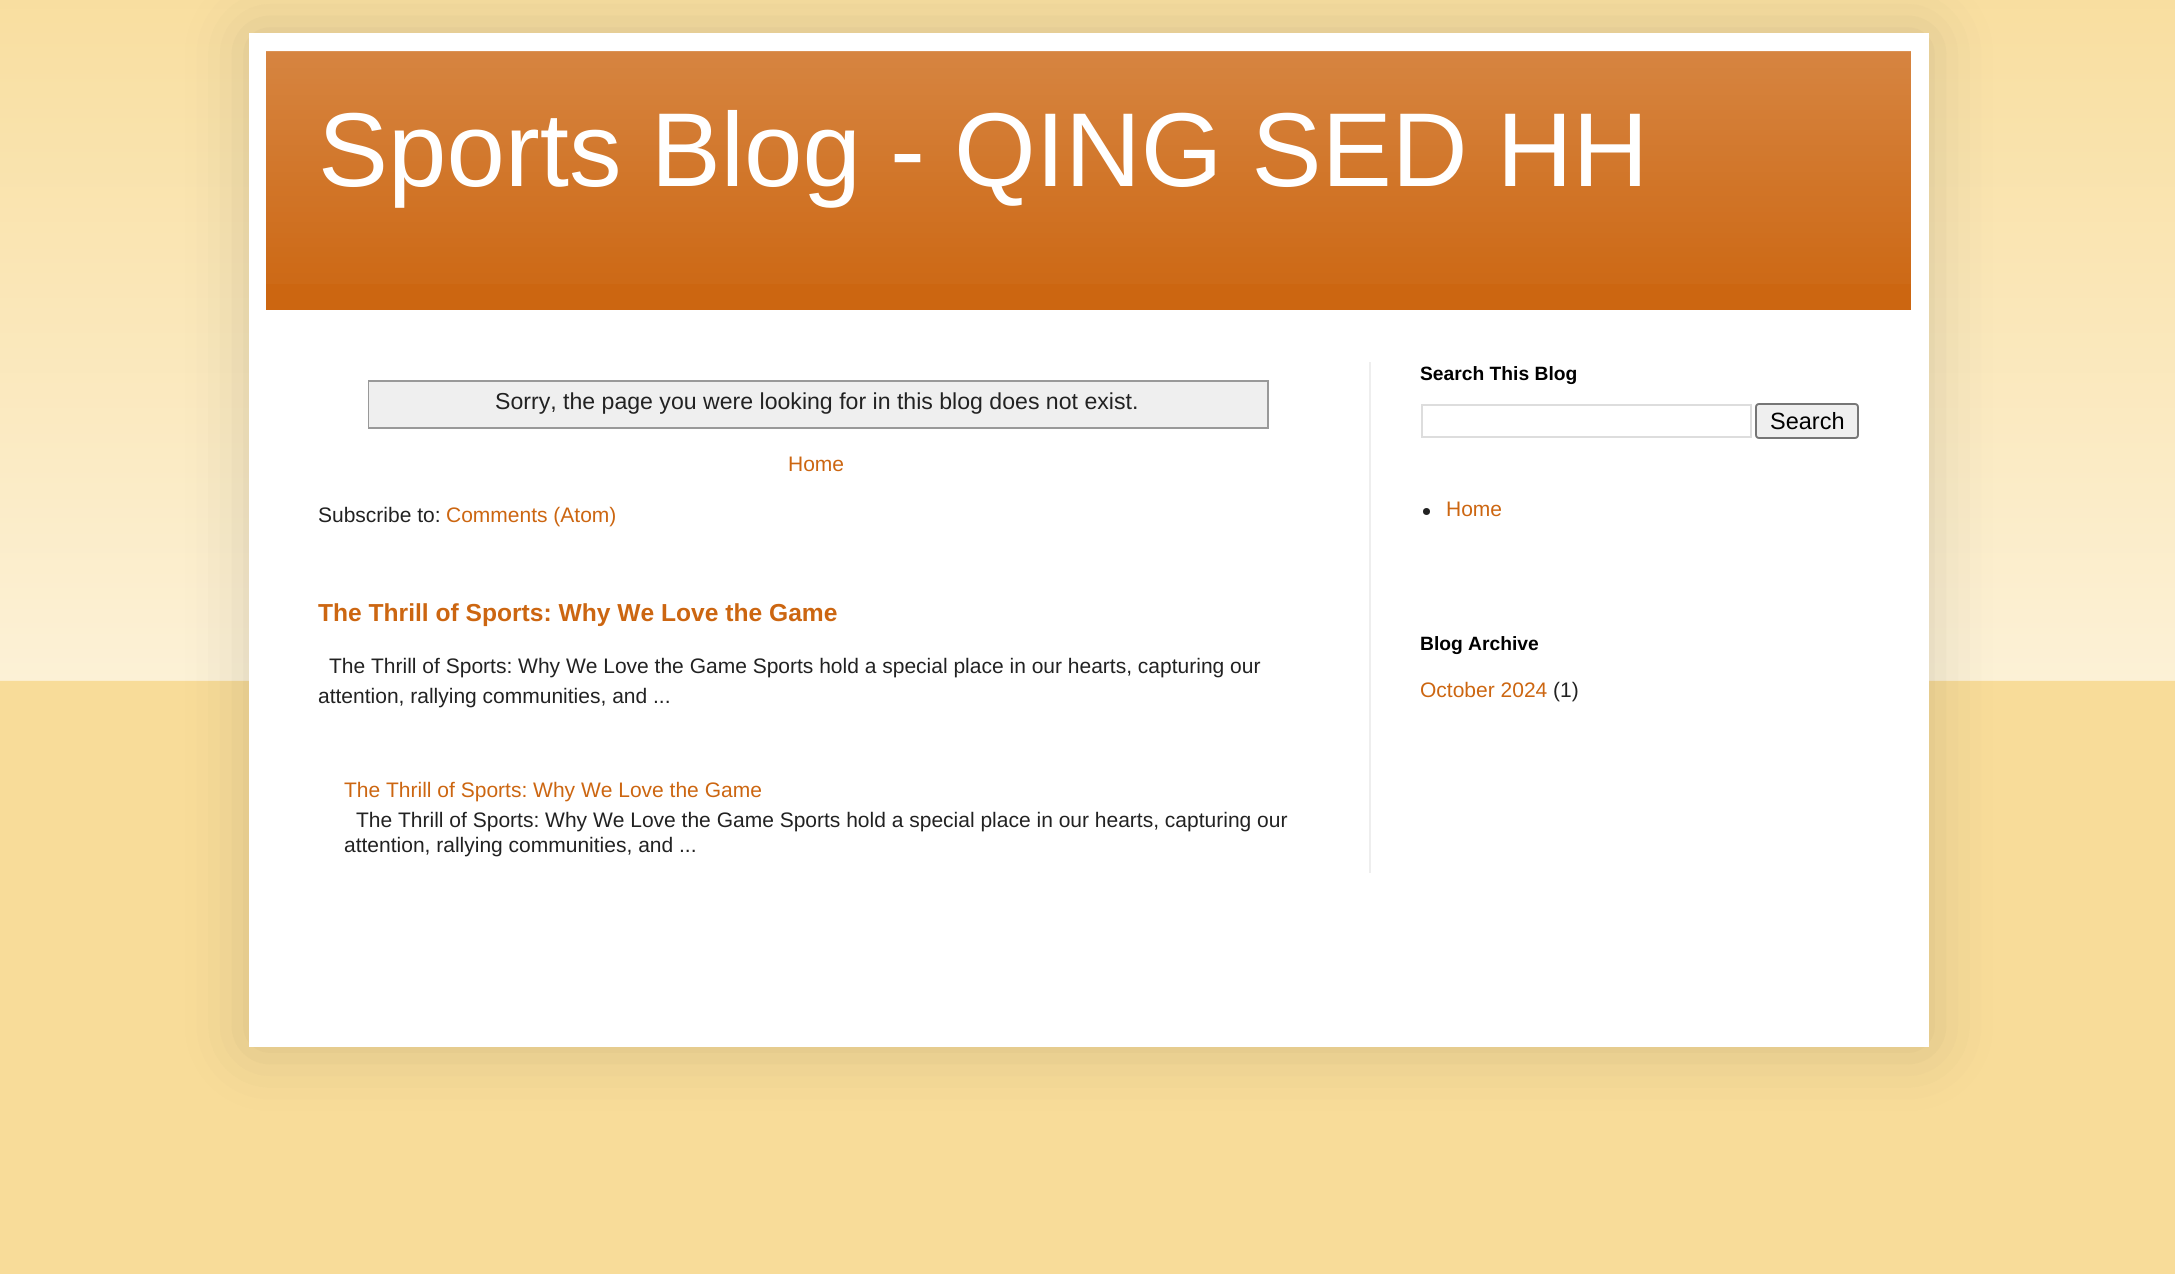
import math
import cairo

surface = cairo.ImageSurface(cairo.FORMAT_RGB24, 2175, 1274)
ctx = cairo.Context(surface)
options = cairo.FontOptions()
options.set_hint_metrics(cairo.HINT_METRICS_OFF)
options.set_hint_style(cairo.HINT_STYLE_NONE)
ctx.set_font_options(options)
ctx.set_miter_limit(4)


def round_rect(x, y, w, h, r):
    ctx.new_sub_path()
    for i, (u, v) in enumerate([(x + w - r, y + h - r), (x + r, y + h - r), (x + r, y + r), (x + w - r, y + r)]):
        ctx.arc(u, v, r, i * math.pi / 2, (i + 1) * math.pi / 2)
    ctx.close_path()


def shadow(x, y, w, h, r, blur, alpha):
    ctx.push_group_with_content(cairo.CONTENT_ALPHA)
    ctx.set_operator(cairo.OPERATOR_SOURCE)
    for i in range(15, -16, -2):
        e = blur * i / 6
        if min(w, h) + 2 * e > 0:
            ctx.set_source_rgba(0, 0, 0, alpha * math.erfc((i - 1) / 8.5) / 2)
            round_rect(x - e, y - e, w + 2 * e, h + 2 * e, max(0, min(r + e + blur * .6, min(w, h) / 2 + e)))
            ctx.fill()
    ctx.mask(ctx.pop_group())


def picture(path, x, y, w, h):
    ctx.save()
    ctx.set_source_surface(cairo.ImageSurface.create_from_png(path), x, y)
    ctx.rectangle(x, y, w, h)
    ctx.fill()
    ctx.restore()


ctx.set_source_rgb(0.969, 0.863, 0.6)
ctx.paint()
picture("img1.png", 0, 0, 2175, 681)
ctx.set_source_rgb(0, 0, 0)
shadow(249, 33, 1680, 1014, 0, 35, 0.15)
ctx.set_source_rgb(1, 1, 1)
ctx.rectangle(249, 33, 1680, 1014)
ctx.fill()
ctx.set_source_rgb(0.8, 0.4, 0.067)
ctx.rectangle(266, 51, 1645, 259)
ctx.fill()
picture("img2.png", 266, 51, 1645, 233)
ctx.select_font_face("Liberation Sans")
ctx.set_font_size(105)
ctx.set_source_rgb(1, 1, 1)
ctx.move_to(318, 186)
ctx.show_text("Sports Blog - QING SED HH")
ctx.set_source_rgb(0.933, 0.933, 0.933)
ctx.rectangle(1369, 362, 2, 511)
ctx.fill()
ctx.rectangle(369, 381, 899, 47)
ctx.set_source_rgb(0.6, 0.6, 0.6)
ctx.stroke()
ctx.set_source_rgb(0.937, 0.937, 0.937)
ctx.rectangle(369, 382, 898, 45)
ctx.fill()
ctx.set_font_size(23.1)
ctx.set_source_rgb(0.133, 0.133, 0.133)
ctx.move_to(495, 409)
ctx.show_text("Sorry, the page you were looking for in this blog does not exist.")
ctx.set_font_size(21)
ctx.set_source_rgb(0.8, 0.4, 0.067)
ctx.move_to(788, 471)
ctx.show_text("Home")
ctx.set_source_rgb(0.133, 0.133, 0.133)
ctx.move_to(318, 522)
ctx.show_text("Subscribe to:")
ctx.set_source_rgb(0.8, 0.4, 0.067)
ctx.move_to(446, 522)
ctx.show_text("Comments (Atom)")
ctx.select_font_face("Liberation Sans", cairo.FONT_SLANT_NORMAL, cairo.FONT_WEIGHT_BOLD)
ctx.set_font_size(24.6)
ctx.move_to(318, 621)
ctx.show_text("The Thrill of Sports: Why We Love the Game")
ctx.select_font_face("Liberation Sans")
ctx.set_font_size(21)
ctx.set_source_rgb(0.133, 0.133, 0.133)
ctx.move_to(329, 673)
ctx.show_text("The Thrill of Sports: Why We Love the Game Sports hold a special place in our hearts, capturing our")
ctx.move_to(318, 703)
ctx.show_text("attention, rallying communities, and ...")
ctx.set_source_rgb(0.8, 0.4, 0.067)
ctx.move_to(344, 797)
ctx.show_text("The Thrill of Sports: Why We Love the Game")
ctx.set_source_rgb(0.133, 0.133, 0.133)
ctx.move_to(356, 827)
ctx.show_text("The Thrill of Sports: Why We Love the Game Sports hold a special place in our hearts, capturing our")
ctx.move_to(344, 852)
ctx.show_text("attention, rallying communities, and ...")
ctx.select_font_face("Liberation Sans", cairo.FONT_SLANT_NORMAL, cairo.FONT_WEIGHT_BOLD)
ctx.set_font_size(19.25)
ctx.set_source_rgb(0, 0, 0)
ctx.move_to(1420, 380)
ctx.show_text("Search This Blog")
ctx.rectangle(1422, 405, 329, 32)
ctx.set_source_rgb(0.867, 0.867, 0.867)
ctx.stroke()
ctx.set_source_rgb(0.937, 0.937, 0.937)
round_rect(1756, 404, 102, 34, 3)
ctx.fill_preserve()
ctx.set_source_rgb(0.463, 0.463, 0.463)
ctx.stroke()
ctx.select_font_face("Liberation Sans")
ctx.set_font_size(23.5)
ctx.set_source_rgb(0, 0, 0)
ctx.move_to(1770, 429)
ctx.show_text("Search")
ctx.set_source_rgb(0.133, 0.133, 0.133)
ctx.new_path()
ctx.arc(1426.5, 511.5, 3.5, 0, 2 * math.pi)
ctx.fill()
ctx.set_font_size(21)
ctx.set_source_rgb(0.8, 0.4, 0.067)
ctx.move_to(1446, 516)
ctx.show_text("Home")
ctx.select_font_face("Liberation Sans", cairo.FONT_SLANT_NORMAL, cairo.FONT_WEIGHT_BOLD)
ctx.set_font_size(19.25)
ctx.set_source_rgb(0, 0, 0)
ctx.move_to(1420, 650)
ctx.show_text("Blog Archive")
ctx.select_font_face("Liberation Sans")
ctx.set_font_size(21)
ctx.set_source_rgb(0.8, 0.4, 0.067)
ctx.move_to(1420, 697)
ctx.show_text("October 2024")
ctx.set_source_rgb(0.133, 0.133, 0.133)
ctx.move_to(1553, 697)
ctx.show_text("(1)")
surface.write_to_png("page.png")
